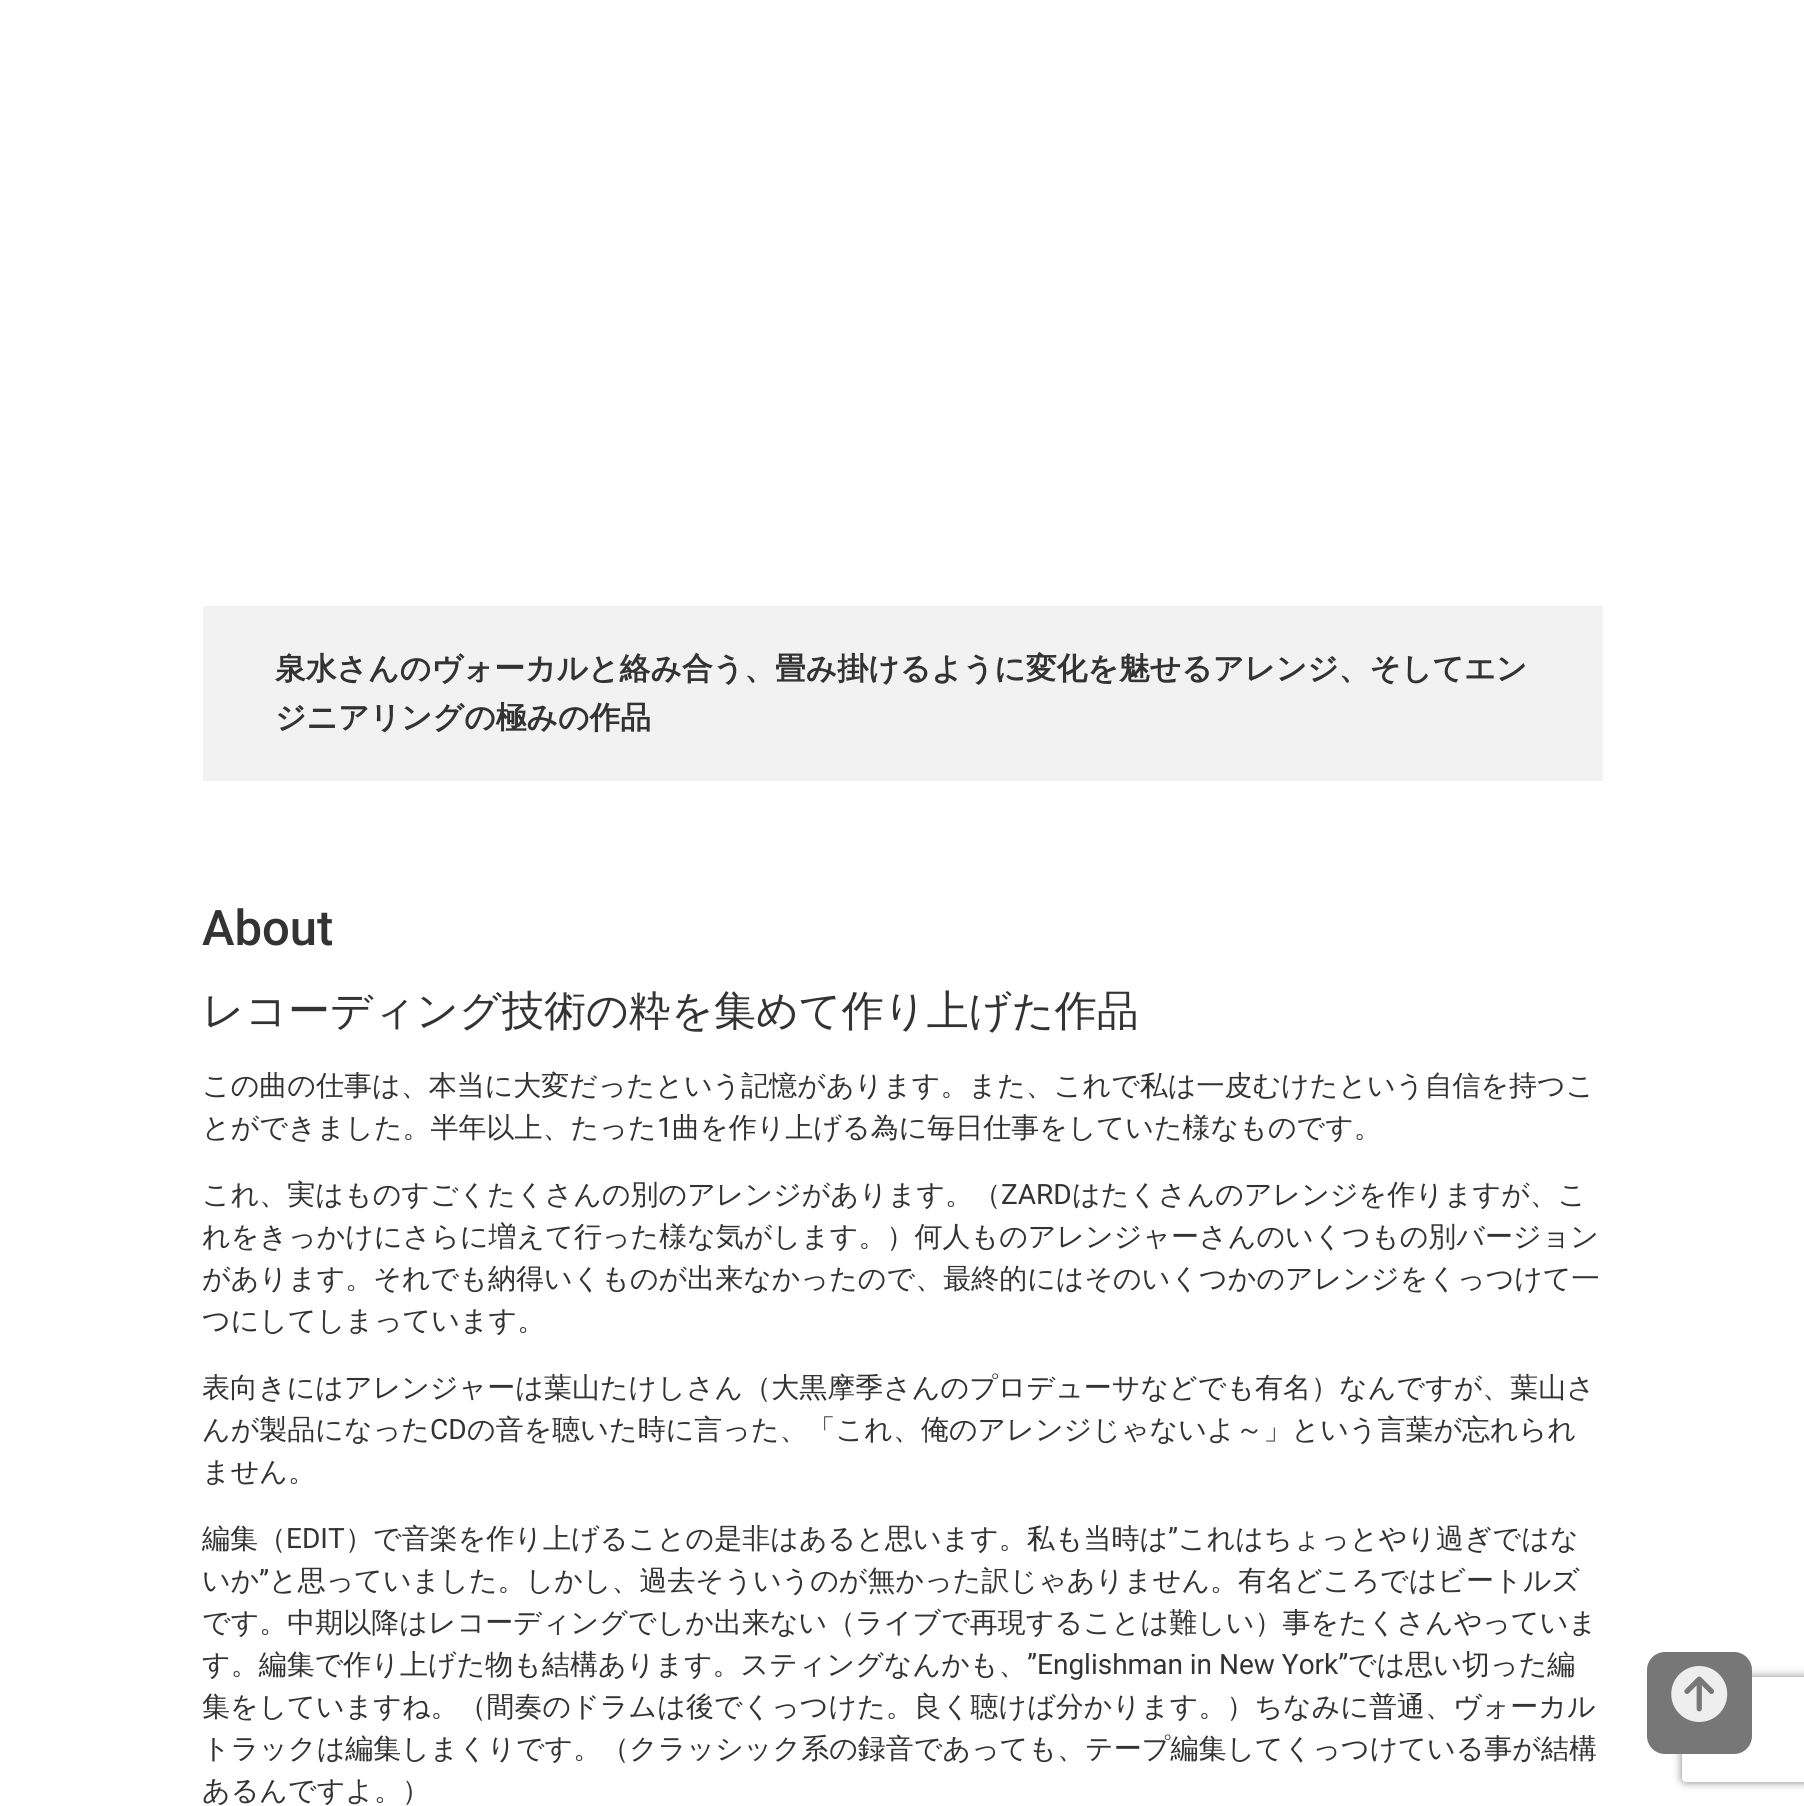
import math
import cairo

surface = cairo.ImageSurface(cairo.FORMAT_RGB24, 1804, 1806)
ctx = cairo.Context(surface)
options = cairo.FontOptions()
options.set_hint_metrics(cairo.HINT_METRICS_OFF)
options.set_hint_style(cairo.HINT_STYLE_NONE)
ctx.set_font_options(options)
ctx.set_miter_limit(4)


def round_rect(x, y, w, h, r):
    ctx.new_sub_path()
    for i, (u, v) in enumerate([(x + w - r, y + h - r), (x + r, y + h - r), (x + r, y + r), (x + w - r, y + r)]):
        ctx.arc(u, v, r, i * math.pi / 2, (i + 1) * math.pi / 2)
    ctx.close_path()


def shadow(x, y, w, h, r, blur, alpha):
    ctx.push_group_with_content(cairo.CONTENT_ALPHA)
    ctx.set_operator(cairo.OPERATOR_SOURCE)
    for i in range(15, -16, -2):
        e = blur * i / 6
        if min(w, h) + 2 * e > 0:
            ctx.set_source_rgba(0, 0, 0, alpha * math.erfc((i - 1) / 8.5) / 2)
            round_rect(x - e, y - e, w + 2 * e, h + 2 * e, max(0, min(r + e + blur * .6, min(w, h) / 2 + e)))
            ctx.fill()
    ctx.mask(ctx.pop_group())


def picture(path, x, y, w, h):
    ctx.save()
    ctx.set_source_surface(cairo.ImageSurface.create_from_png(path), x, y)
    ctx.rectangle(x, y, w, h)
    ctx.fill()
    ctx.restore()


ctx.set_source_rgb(1, 1, 1)
ctx.paint()
ctx.set_source_rgb(0.949, 0.949, 0.949)
ctx.rectangle(203, 606, 1400, 175)
ctx.fill()
ctx.select_font_face("WenQuanYi Zen Hei", cairo.FONT_SLANT_NORMAL, cairo.FONT_WEIGHT_BOLD)
ctx.set_font_size(30.8)
ctx.set_source_rgb(0.2, 0.2, 0.2)
ctx.move_to(275, 679)
ctx.show_text("泉水さんのヴォーカルと絡み合う、畳み掛けるように変化を魅せるアレンジ、そしてエン")
ctx.move_to(275, 728)
ctx.show_text("ジニアリングの極みの作品")
ctx.select_font_face("Roboto Medium")
ctx.set_font_size(49)
ctx.move_to(202, 945)
ctx.show_text("About")
ctx.select_font_face("WenQuanYi Zen Hei Medium")
ctx.set_font_size(42)
ctx.move_to(202, 1025)
ctx.show_text("レコーディング技術の粋を集めて作り上げた作品")
ctx.set_font_size(28)
ctx.move_to(202, 1095)
ctx.show_text("この曲の仕事は、本当に大変だったという記憶があります。また、これで私は一皮むけたという自信を持つこ")
ctx.move_to(202, 1137)
ctx.show_text("とができました。半年以上、たった")
ctx.select_font_face("Roboto")
ctx.move_to(657, 1137)
ctx.show_text("1")
ctx.select_font_face("WenQuanYi Zen Hei Medium")
ctx.move_to(672, 1137)
ctx.show_text("曲を作り上げる為に毎日仕事をしていた様なものです。")
ctx.move_to(202, 1204)
ctx.show_text("これ、実はものすごくたくさんの別のアレンジがあります。（")
ctx.select_font_face("Roboto")
ctx.move_to(1001, 1204)
ctx.show_text("ZARD")
ctx.select_font_face("WenQuanYi Zen Hei Medium")
ctx.move_to(1072, 1204)
ctx.show_text("はたくさんのアレンジを作りますが、こ")
ctx.move_to(202, 1246)
ctx.show_text("れをきっかけにさらに増えて行った様な気がします。）何人ものアレンジャーさんのいくつもの別バージョン")
ctx.move_to(202, 1288)
ctx.show_text("があります。それでも納得いくものが出来なかったので、最終的にはそのいくつかのアレンジをくっつけて一")
ctx.move_to(202, 1330)
ctx.show_text("つにしてしまっています。")
ctx.move_to(202, 1397)
ctx.show_text("表向きにはアレンジャーは葉山たけしさん（大黒摩季さんのプロデューサなどでも有名）なんですが、葉山さ")
ctx.move_to(202, 1439)
ctx.show_text("んが製品になった")
ctx.select_font_face("Roboto")
ctx.move_to(430, 1439)
ctx.show_text("CD")
ctx.select_font_face("WenQuanYi Zen Hei Medium")
ctx.move_to(467, 1439)
ctx.show_text("の音を聴いた時に言った、「これ、俺のアレンジじゃないよ～」という言葉が忘れられ")
ctx.move_to(202, 1481)
ctx.show_text("ません。")
ctx.move_to(202, 1548)
ctx.show_text("編集（")
ctx.select_font_face("Roboto")
ctx.move_to(286, 1548)
ctx.show_text("EDIT")
ctx.select_font_face("WenQuanYi Zen Hei Medium")
ctx.move_to(345, 1548)
ctx.show_text("）で音楽を作り上げることの是非はあると思います。私も当時は")
ctx.select_font_face("Roboto")
ctx.move_to(1168, 1548)
ctx.show_text("”")
ctx.select_font_face("WenQuanYi Zen Hei Medium")
ctx.move_to(1178, 1548)
ctx.show_text("これはちょっとやり過ぎではな")
ctx.move_to(202, 1590)
ctx.show_text("いか")
ctx.select_font_face("Roboto")
ctx.move_to(259, 1590)
ctx.show_text("”")
ctx.select_font_face("WenQuanYi Zen Hei Medium")
ctx.move_to(269, 1590)
ctx.show_text("と思っていました。しかし、過去そういうのが無かった訳じゃありません。有名どころではビートルズ")
ctx.move_to(202, 1632)
ctx.show_text("です。中期以降はレコーディングでしか出来ない（ライブで再現することは難しい）事をたくさんやっていま")
ctx.move_to(202, 1674)
ctx.show_text("す。編集で作り上げた物も結構あります。スティングなんかも、")
ctx.select_font_face("Roboto")
ctx.move_to(1027, 1674)
ctx.show_text("”Englishman in New York”")
ctx.select_font_face("WenQuanYi Zen Hei Medium")
ctx.move_to(1348, 1674)
ctx.show_text("では思い切った編")
ctx.move_to(202, 1716)
ctx.show_text("集をしていますね。（間奏のドラムは後でくっつけた。良く聴けば分かります。）ちなみに普通、ヴォーカル")
ctx.move_to(202, 1758)
ctx.show_text("トラックは編集しまくりです。（クラッシック系の録音であっても、テープ編集してくっつけている事が結構")
ctx.move_to(202, 1800)
ctx.show_text("あるんですよ。）")
ctx.save()
ctx.set_fill_rule(cairo.FILL_RULE_EVEN_ODD)
ctx.new_path()
ctx.move_to(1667, 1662)
ctx.line_to(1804, 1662)
ctx.line_to(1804, 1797)
ctx.line_to(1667, 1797)
ctx.close_path()
ctx.move_to(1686, 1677)
ctx.line_to(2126, 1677)
ctx.curve_to(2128, 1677, 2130, 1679, 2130, 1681)
ctx.line_to(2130, 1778)
ctx.curve_to(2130, 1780, 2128, 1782, 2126, 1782)
ctx.line_to(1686, 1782)
ctx.curve_to(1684, 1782, 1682, 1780, 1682, 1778)
ctx.line_to(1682, 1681)
ctx.curve_to(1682, 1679, 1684, 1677, 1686, 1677)
ctx.close_path()
ctx.clip()
ctx.set_source_rgb(0.502, 0.502, 0.502)
shadow(1682, 1677, 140, 105, 4, 4.5, 1)
ctx.restore()
ctx.set_source_rgb(0.467, 0.467, 0.467)
round_rect(1647, 1652, 105, 102, 18)
ctx.fill()
picture("img1.png", 1671, 1666, 57, 56)
surface.write_to_png("page.png")
